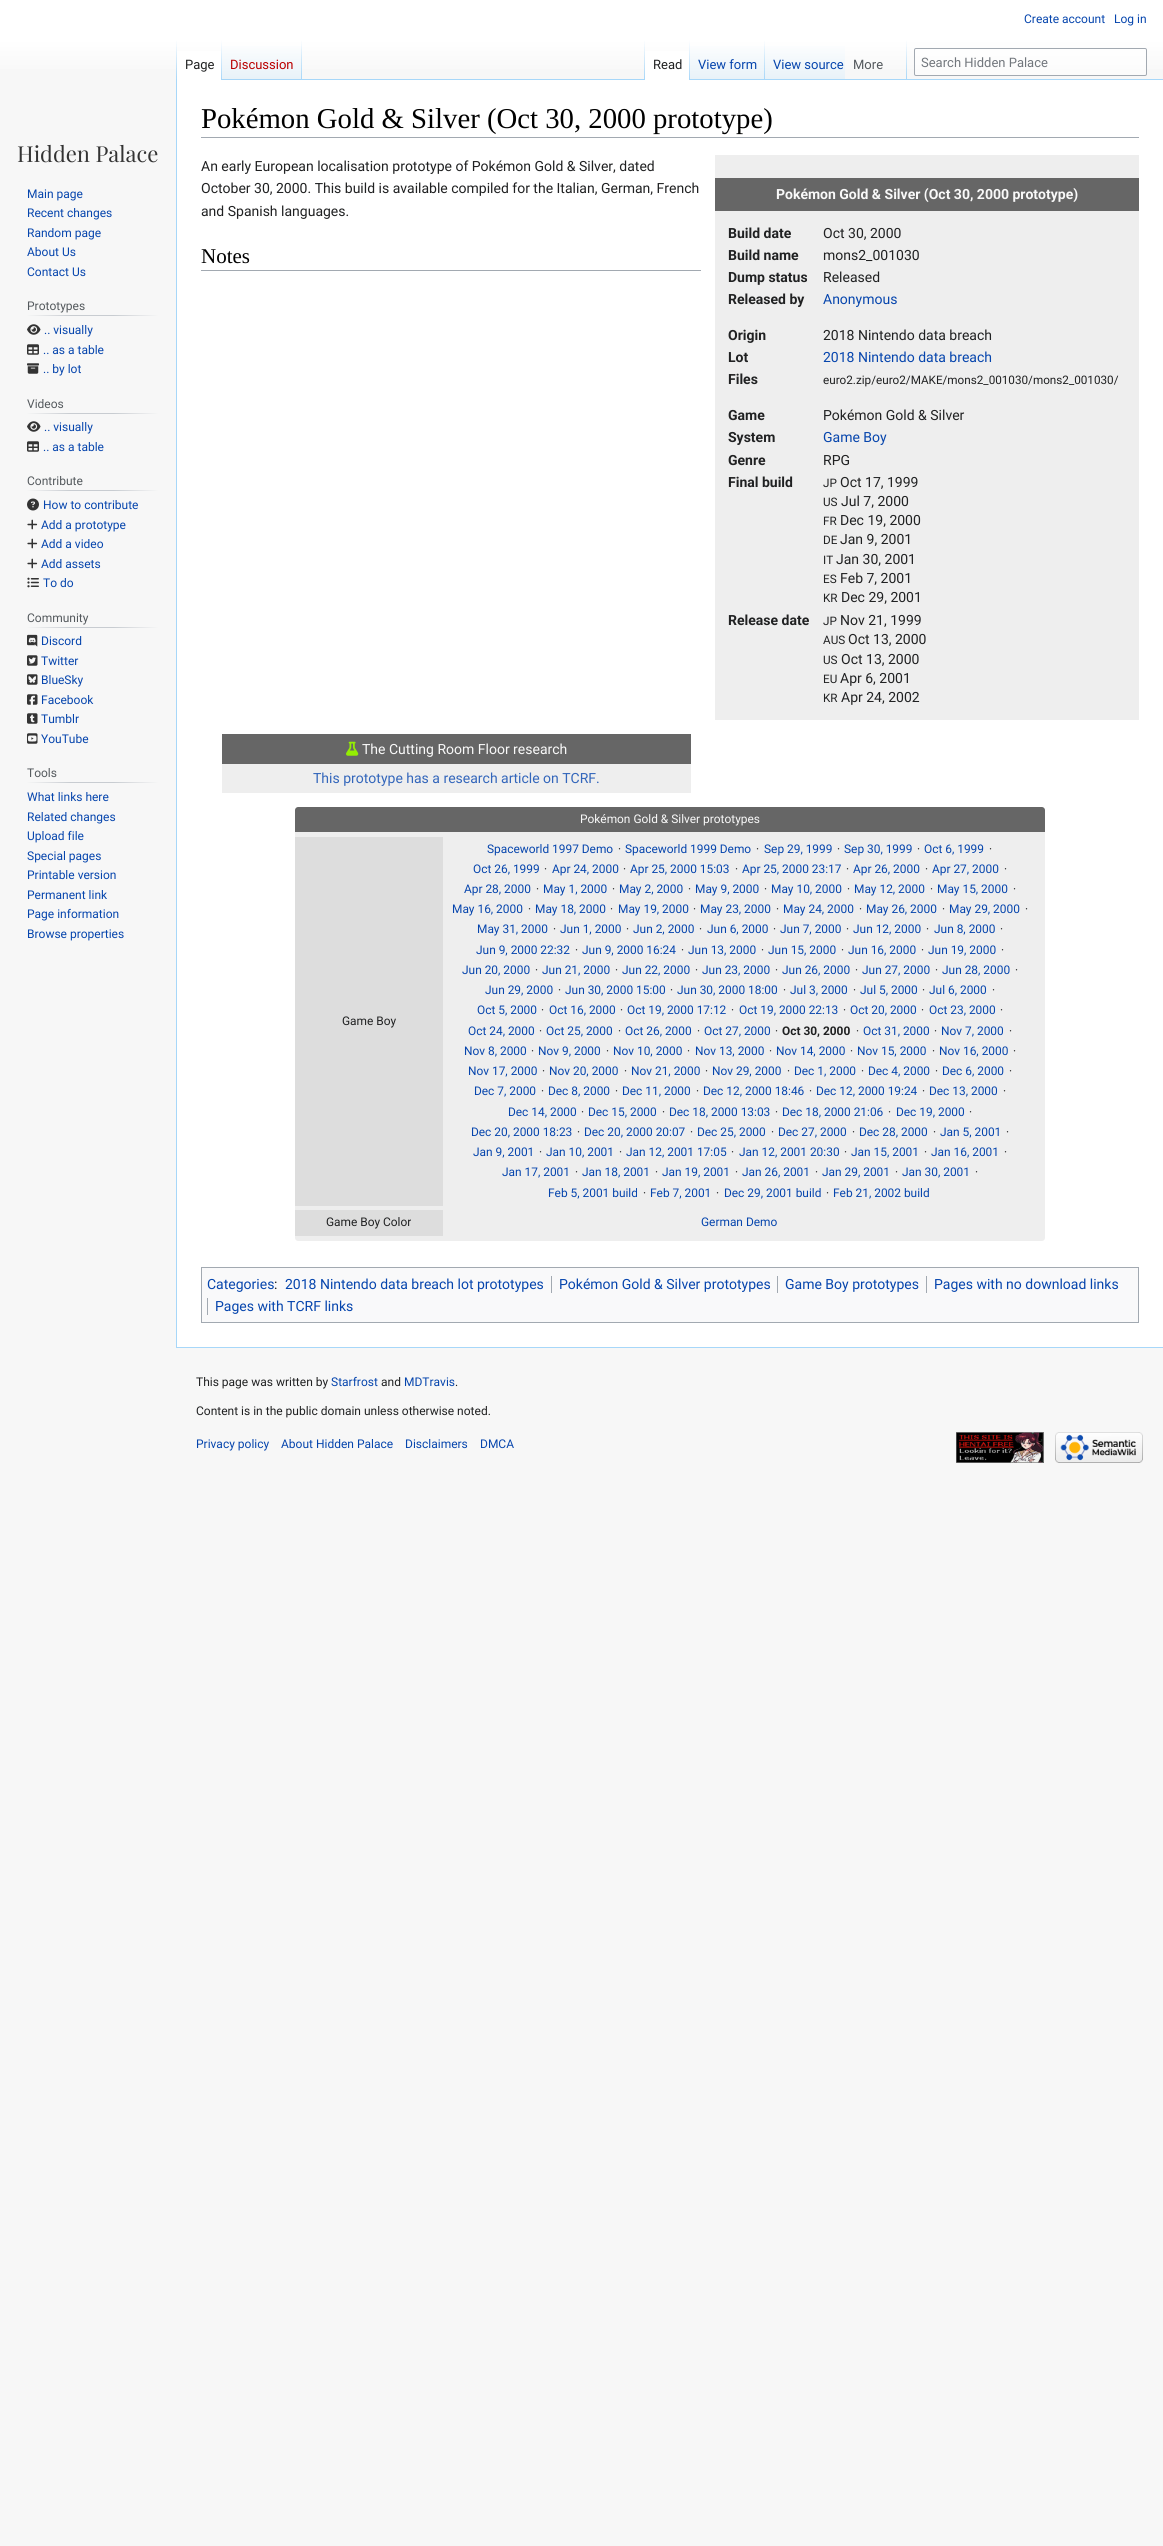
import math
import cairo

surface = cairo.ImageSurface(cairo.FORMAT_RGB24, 1163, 2546)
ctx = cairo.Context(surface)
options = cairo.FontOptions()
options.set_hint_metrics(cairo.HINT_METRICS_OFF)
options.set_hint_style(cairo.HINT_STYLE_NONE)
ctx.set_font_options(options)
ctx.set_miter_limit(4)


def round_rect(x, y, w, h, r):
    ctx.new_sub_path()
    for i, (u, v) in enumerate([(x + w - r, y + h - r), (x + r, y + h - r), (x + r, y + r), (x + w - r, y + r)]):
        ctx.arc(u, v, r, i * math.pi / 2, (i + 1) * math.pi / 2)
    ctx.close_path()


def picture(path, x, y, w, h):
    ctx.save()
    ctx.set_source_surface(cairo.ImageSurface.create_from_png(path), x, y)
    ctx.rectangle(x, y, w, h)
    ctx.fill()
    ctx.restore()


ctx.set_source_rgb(0.965, 0.965, 0.965)
ctx.paint()
gradient = cairo.LinearGradient(582, 0, 582, 80)
gradient.add_color_stop_rgba(0.5, 1, 1, 1, 1)
gradient.add_color_stop_rgba(1, 0.965, 0.965, 0.965, 1)
ctx.set_source(gradient)
ctx.rectangle(0, 0, 1163, 69)
ctx.fill()
ctx.select_font_face("Roboto")
ctx.set_font_size(12)
ctx.set_source_rgb(0.024, 0.271, 0.678)
ctx.move_to(1024, 23)
ctx.show_text("Create account")
ctx.move_to(1114, 23)
ctx.show_text("Log in")
ctx.set_source_rgb(0.655, 0.843, 0.976)
ctx.rectangle(176, 1347, 987, 1)
ctx.fill()
ctx.rectangle(176, 79, 1, 1269)
ctx.fill()
gradient = cairo.LinearGradient(177, 40, 177, 80)
gradient.add_color_stop_rgba(0, 0.655, 0.843, 0.976, 0)
gradient.add_color_stop_rgba(1, 0.655, 0.843, 0.976, 1)
ctx.set_source(gradient)
ctx.rectangle(176, 40, 1, 40)
ctx.fill()
ctx.set_source_rgb(1, 1, 1)
ctx.rectangle(177, 51, 44, 29)
ctx.fill()
gradient = cairo.LinearGradient(222, 40, 222, 80)
gradient.add_color_stop_rgba(0, 1, 1, 1, 1)
gradient.add_color_stop_rgba(1, 0.655, 0.843, 0.976, 1)
ctx.set_source(gradient)
ctx.rectangle(221, 40, 1, 40)
ctx.fill()
ctx.set_font_size(13)
ctx.set_source_rgb(0.125, 0.129, 0.133)
ctx.move_to(185, 69)
ctx.show_text("Page")
gradient = cairo.LinearGradient(262, 80, 262, 40)
gradient.add_color_stop_rgba(0, 0.467, 0.757, 0.965, 1)
gradient.add_color_stop_rgba(0.03, 0.91, 0.949, 0.973, 1)
gradient.add_color_stop_rgba(1, 1, 1, 1, 1)
ctx.set_source(gradient)
ctx.rectangle(222, 46, 80, 34)
ctx.fill()
gradient = cairo.LinearGradient(302, 40, 302, 80)
gradient.add_color_stop_rgba(0, 0.655, 0.843, 0.976, 0)
gradient.add_color_stop_rgba(1, 0.655, 0.843, 0.976, 1)
ctx.set_source(gradient)
ctx.rectangle(301, 40, 1, 40)
ctx.fill()
ctx.set_source_rgb(0.729, 0, 0)
ctx.move_to(230, 69)
ctx.show_text("Discussion")
ctx.set_source_rgb(0.655, 0.843, 0.976)
ctx.rectangle(302, 79, 861, 1)
ctx.fill()
gradient = cairo.LinearGradient(645, 40, 645, 80)
gradient.add_color_stop_rgba(0, 0.655, 0.843, 0.976, 0)
gradient.add_color_stop_rgba(1, 0.655, 0.843, 0.976, 1)
ctx.set_source(gradient)
ctx.rectangle(644, 40, 1, 40)
ctx.fill()
ctx.set_source_rgb(1, 1, 1)
ctx.rectangle(645, 51, 44, 29)
ctx.fill()
gradient = cairo.LinearGradient(690, 40, 690, 80)
gradient.add_color_stop_rgba(0, 1, 1, 1, 1)
gradient.add_color_stop_rgba(1, 0.655, 0.843, 0.976, 1)
ctx.set_source(gradient)
ctx.rectangle(689, 40, 1, 40)
ctx.fill()
ctx.set_source_rgb(0.125, 0.129, 0.133)
ctx.move_to(653, 69)
ctx.show_text("Read")
gradient = cairo.LinearGradient(728, 80, 728, 40)
gradient.add_color_stop_rgba(0, 0.467, 0.757, 0.965, 1)
gradient.add_color_stop_rgba(0.03, 0.91, 0.949, 0.973, 1)
gradient.add_color_stop_rgba(1, 1, 1, 1, 1)
ctx.set_source(gradient)
ctx.rectangle(690, 46, 75, 33)
ctx.fill()
gradient = cairo.LinearGradient(765, 40, 765, 80)
gradient.add_color_stop_rgba(0, 0.655, 0.843, 0.976, 0)
gradient.add_color_stop_rgba(1, 0.655, 0.843, 0.976, 1)
ctx.set_source(gradient)
ctx.rectangle(764, 40, 1, 40)
ctx.fill()
ctx.set_source_rgb(0.024, 0.271, 0.678)
ctx.move_to(698, 69)
ctx.show_text("View form")
gradient = cairo.LinearGradient(805, 80, 805, 40)
gradient.add_color_stop_rgba(0, 0.467, 0.757, 0.965, 1)
gradient.add_color_stop_rgba(0.03, 0.91, 0.949, 0.973, 1)
gradient.add_color_stop_rgba(1, 1, 1, 1, 1)
ctx.set_source(gradient)
ctx.rectangle(765, 46, 80, 33)
ctx.fill()
ctx.set_source_rgb(0.024, 0.271, 0.678)
ctx.move_to(773, 69)
ctx.show_text("View source")
gradient = cairo.LinearGradient(907, 40, 907, 80)
gradient.add_color_stop_rgba(0, 0.655, 0.843, 0.976, 0)
gradient.add_color_stop_rgba(1, 0.655, 0.843, 0.976, 1)
ctx.set_source(gradient)
ctx.rectangle(906, 40, 1, 40)
ctx.fill()
ctx.set_source_rgb(0.329, 0.349, 0.365)
ctx.move_to(853, 69)
ctx.show_text("More")
ctx.set_source_rgba(1, 1, 1, 0.5)
round_rect(914.5, 48.5, 232, 27, 1.5)
ctx.fill_preserve()
ctx.set_source_rgb(0.635, 0.663, 0.694)
ctx.set_line_width(1)
ctx.stroke()
ctx.set_source_rgb(0.447, 0.467, 0.49)
ctx.move_to(921, 67)
ctx.show_text("Search Hidden Palace")
ctx.select_font_face("Playfair Display")
ctx.set_font_size(22)
ctx.set_source_rgb(0.2, 0.2, 0.2)
ctx.move_to(17, 162)
ctx.show_text("Hidden Palace")
ctx.select_font_face("Roboto")
ctx.set_font_size(12)
ctx.set_source_rgb(0.024, 0.271, 0.678)
ctx.move_to(27, 198)
ctx.show_text("Main page")
ctx.move_to(27, 217)
ctx.show_text("Recent changes")
ctx.move_to(27, 237)
ctx.show_text("Random page")
ctx.move_to(27, 256)
ctx.show_text("About Us")
ctx.move_to(27, 276)
ctx.show_text("Contact Us")
gradient = cairo.LinearGradient(27, 316, 158, 316)
gradient.add_color_stop_rgba(0, 0.965, 0.965, 0.965, 1)
gradient.add_color_stop_rgba(0.33, 0.784, 0.8, 0.82, 1)
gradient.add_color_stop_rgba(0.66, 0.784, 0.8, 0.82, 1)
gradient.add_color_stop_rgba(1, 0.965, 0.965, 0.965, 1)
ctx.set_source(gradient)
ctx.rectangle(27, 315, 131, 1)
ctx.fill()
ctx.set_source_rgb(0.329, 0.349, 0.365)
ctx.move_to(27, 310)
ctx.show_text("Prototypes")
picture("img1.png", 27, 324, 14, 11)
ctx.set_source_rgb(0.024, 0.271, 0.678)
ctx.move_to(44, 334)
ctx.show_text(".. visually")
picture("img2.png", 27, 344, 12, 11)
ctx.move_to(43, 354)
ctx.show_text(".. as a table")
picture("img3.png", 27, 363, 12, 11)
ctx.move_to(43, 373)
ctx.show_text(".. by lot")
gradient = cairo.LinearGradient(27, 414, 158, 414)
gradient.add_color_stop_rgba(0, 0.965, 0.965, 0.965, 1)
gradient.add_color_stop_rgba(0.33, 0.784, 0.8, 0.82, 1)
gradient.add_color_stop_rgba(0.66, 0.784, 0.8, 0.82, 1)
gradient.add_color_stop_rgba(1, 0.965, 0.965, 0.965, 1)
ctx.set_source(gradient)
ctx.rectangle(27, 413, 131, 1)
ctx.fill()
ctx.set_source_rgb(0.329, 0.349, 0.365)
ctx.move_to(27, 408)
ctx.show_text("Videos")
picture("img1.png", 27, 421, 14, 11)
ctx.set_source_rgb(0.024, 0.271, 0.678)
ctx.move_to(44, 431)
ctx.show_text(".. visually")
picture("img2.png", 27, 441, 12, 11)
ctx.move_to(43, 451)
ctx.show_text(".. as a table")
gradient = cairo.LinearGradient(27, 491, 158, 491)
gradient.add_color_stop_rgba(0, 0.965, 0.965, 0.965, 1)
gradient.add_color_stop_rgba(0.33, 0.784, 0.8, 0.82, 1)
gradient.add_color_stop_rgba(0.66, 0.784, 0.8, 0.82, 1)
gradient.add_color_stop_rgba(1, 0.965, 0.965, 0.965, 1)
ctx.set_source(gradient)
ctx.rectangle(27, 490, 131, 1)
ctx.fill()
ctx.set_source_rgb(0.329, 0.349, 0.365)
ctx.move_to(27, 485)
ctx.show_text("Contribute")
picture("img4.png", 27, 498, 12, 13)
ctx.set_source_rgb(0.024, 0.271, 0.678)
ctx.move_to(43, 509)
ctx.show_text("How to contribute")
picture("img5.png", 27, 519, 11, 11)
ctx.move_to(41, 529)
ctx.show_text("Add a prototype")
picture("img5.png", 27, 538, 11, 11)
ctx.move_to(41, 548)
ctx.show_text("Add a video")
picture("img5.png", 27, 558, 11, 11)
ctx.move_to(41, 568)
ctx.show_text("Add assets")
picture("img6.png", 27, 577, 12, 11)
ctx.move_to(43, 587)
ctx.show_text("To do")
gradient = cairo.LinearGradient(27, 628, 158, 628)
gradient.add_color_stop_rgba(0, 0.965, 0.965, 0.965, 1)
gradient.add_color_stop_rgba(0.33, 0.784, 0.8, 0.82, 1)
gradient.add_color_stop_rgba(0.66, 0.784, 0.8, 0.82, 1)
gradient.add_color_stop_rgba(1, 0.965, 0.965, 0.965, 1)
ctx.set_source(gradient)
ctx.rectangle(27, 627, 131, 1)
ctx.fill()
ctx.set_source_rgb(0.329, 0.349, 0.365)
ctx.move_to(27, 622)
ctx.show_text("Community")
picture("img7.png", 27, 634, 11, 13)
ctx.set_source_rgb(0.024, 0.271, 0.678)
ctx.move_to(41, 645)
ctx.show_text("Discord")
picture("img8.png", 27, 655, 11, 11)
ctx.move_to(41, 665)
ctx.show_text("Twitter")
picture("img9.png", 27, 674, 11, 11)
ctx.move_to(41, 684)
ctx.show_text("BlueSky")
picture("img10.png", 27, 694, 11, 11)
ctx.move_to(41, 704)
ctx.show_text("Facebook")
picture("img11.png", 27, 713, 11, 11)
ctx.move_to(41, 723)
ctx.show_text("Tumblr")
picture("img12.png", 27, 733, 11, 11)
ctx.move_to(41, 743)
ctx.show_text("YouTube")
gradient = cairo.LinearGradient(27, 783, 158, 783)
gradient.add_color_stop_rgba(0, 0.965, 0.965, 0.965, 1)
gradient.add_color_stop_rgba(0.33, 0.784, 0.8, 0.82, 1)
gradient.add_color_stop_rgba(0.66, 0.784, 0.8, 0.82, 1)
gradient.add_color_stop_rgba(1, 0.965, 0.965, 0.965, 1)
ctx.set_source(gradient)
ctx.rectangle(27, 782, 131, 1)
ctx.fill()
ctx.set_source_rgb(0.329, 0.349, 0.365)
ctx.move_to(27, 777)
ctx.show_text("Tools")
ctx.set_source_rgb(0.024, 0.271, 0.678)
ctx.move_to(27, 801)
ctx.show_text("What links here")
ctx.move_to(27, 821)
ctx.show_text("Related changes")
ctx.move_to(27, 840)
ctx.show_text("Upload file")
ctx.move_to(27, 860)
ctx.show_text("Special pages")
ctx.move_to(27, 879)
ctx.show_text("Printable version")
ctx.move_to(27, 899)
ctx.show_text("Permanent link")
ctx.move_to(27, 918)
ctx.show_text("Page information")
ctx.move_to(27, 938)
ctx.show_text("Browse properties")
ctx.set_source_rgb(1, 1, 1)
ctx.rectangle(177, 80, 986, 1267)
ctx.fill()
ctx.set_source_rgb(0.635, 0.663, 0.694)
ctx.rectangle(201, 137, 938, 1)
ctx.fill()
ctx.select_font_face("Liberation Serif")
ctx.set_font_size(28.75)
ctx.set_source_rgb(0, 0, 0)
ctx.move_to(201, 128)
ctx.show_text("Pokémon Gold & Silver (Oct 30, 2000 prototype)")
ctx.select_font_face("Roboto")
ctx.set_font_size(14)
ctx.set_source_rgb(0.125, 0.129, 0.133)
ctx.move_to(201, 171)
ctx.show_text("An early European localisation prototype of Pokémon Gold & Silver, dated")
ctx.move_to(201, 193)
ctx.show_text("October 30, 2000. This build is available compiled for the Italian, German, French")
ctx.move_to(201, 216)
ctx.show_text("and Spanish languages.")
ctx.set_source_rgb(0.933, 0.933, 0.933)
ctx.rectangle(715, 155, 424, 565)
ctx.fill()
ctx.set_source_rgb(0.4, 0.4, 0.4)
ctx.rectangle(715, 178, 424, 33)
ctx.fill()
ctx.select_font_face("Roboto", cairo.FONT_SLANT_NORMAL, cairo.FONT_WEIGHT_BOLD)
ctx.set_source_rgb(0.973, 0.973, 0.973)
ctx.move_to(776, 199)
ctx.show_text("Pokémon Gold & Silver (Oct 30, 2000 prototype)")
ctx.set_source_rgb(0.125, 0.129, 0.133)
ctx.move_to(728, 238)
ctx.show_text("Build date")
ctx.select_font_face("Roboto")
ctx.move_to(823, 238)
ctx.show_text("Oct 30, 2000")
ctx.select_font_face("Roboto", cairo.FONT_SLANT_NORMAL, cairo.FONT_WEIGHT_BOLD)
ctx.move_to(728, 260)
ctx.show_text("Build name")
ctx.select_font_face("Roboto")
ctx.move_to(823, 260)
ctx.show_text("mons2_001030")
ctx.select_font_face("Roboto", cairo.FONT_SLANT_NORMAL, cairo.FONT_WEIGHT_BOLD)
ctx.move_to(728, 282)
ctx.show_text("Dump status")
ctx.select_font_face("Roboto")
ctx.move_to(823, 282)
ctx.show_text("Released")
ctx.select_font_face("Roboto", cairo.FONT_SLANT_NORMAL, cairo.FONT_WEIGHT_BOLD)
ctx.move_to(728, 304)
ctx.show_text("Released by")
ctx.select_font_face("Roboto")
ctx.set_source_rgb(0.024, 0.271, 0.678)
ctx.move_to(823, 304)
ctx.show_text("Anonymous")
ctx.select_font_face("Roboto", cairo.FONT_SLANT_NORMAL, cairo.FONT_WEIGHT_BOLD)
ctx.set_source_rgb(0.125, 0.129, 0.133)
ctx.move_to(728, 340)
ctx.show_text("Origin")
ctx.select_font_face("Roboto")
ctx.move_to(823, 340)
ctx.show_text("2018 Nintendo data breach")
ctx.select_font_face("Roboto", cairo.FONT_SLANT_NORMAL, cairo.FONT_WEIGHT_BOLD)
ctx.move_to(728, 362)
ctx.show_text("Lot")
ctx.select_font_face("Roboto")
ctx.set_source_rgb(0.024, 0.271, 0.678)
ctx.move_to(823, 362)
ctx.show_text("2018 Nintendo data breach")
ctx.select_font_face("Roboto", cairo.FONT_SLANT_NORMAL, cairo.FONT_WEIGHT_BOLD)
ctx.set_source_rgb(0.125, 0.129, 0.133)
ctx.move_to(728, 384)
ctx.show_text("Files")
ctx.select_font_face("Roboto")
ctx.set_font_size(11.7)
ctx.move_to(823, 384)
ctx.show_text("euro2.zip/euro2/MAKE/mons2_001030/mons2_001030/")
ctx.select_font_face("Roboto", cairo.FONT_SLANT_NORMAL, cairo.FONT_WEIGHT_BOLD)
ctx.set_font_size(14)
ctx.move_to(728, 420)
ctx.show_text("Game")
ctx.select_font_face("Roboto")
ctx.move_to(823, 420)
ctx.show_text("Pokémon Gold & Silver")
ctx.select_font_face("Roboto", cairo.FONT_SLANT_NORMAL, cairo.FONT_WEIGHT_BOLD)
ctx.move_to(728, 442)
ctx.show_text("System")
ctx.select_font_face("Roboto")
ctx.set_source_rgb(0.024, 0.271, 0.678)
ctx.move_to(823, 442)
ctx.show_text("Game Boy")
ctx.select_font_face("Roboto", cairo.FONT_SLANT_NORMAL, cairo.FONT_WEIGHT_BOLD)
ctx.set_source_rgb(0.125, 0.129, 0.133)
ctx.move_to(728, 465)
ctx.show_text("Genre")
ctx.select_font_face("Roboto")
ctx.move_to(823, 465)
ctx.show_text("RPG")
ctx.select_font_face("Roboto", cairo.FONT_SLANT_NORMAL, cairo.FONT_WEIGHT_BOLD)
ctx.move_to(728, 487)
ctx.show_text("Final build")
ctx.select_font_face("Roboto")
ctx.set_font_size(11.7)
ctx.move_to(823, 487)
ctx.show_text("JP")
ctx.set_font_size(14)
ctx.move_to(840, 487)
ctx.show_text("Oct 17, 1999")
ctx.set_font_size(11.7)
ctx.move_to(823, 506)
ctx.show_text("US")
ctx.set_font_size(14)
ctx.move_to(841, 506)
ctx.show_text("Jul 7, 2000")
ctx.set_font_size(11.7)
ctx.move_to(823, 525)
ctx.show_text("FR")
ctx.set_font_size(14)
ctx.move_to(840, 525)
ctx.show_text("Dec 19, 2000")
ctx.set_font_size(11.7)
ctx.move_to(823, 544)
ctx.show_text("DE")
ctx.set_font_size(14)
ctx.move_to(840, 544)
ctx.show_text("Jan 9, 2001")
ctx.set_font_size(11.7)
ctx.move_to(823, 564)
ctx.show_text("IT")
ctx.set_font_size(14)
ctx.move_to(836, 564)
ctx.show_text("Jan 30, 2001")
ctx.set_font_size(11.7)
ctx.move_to(823, 583)
ctx.show_text("ES")
ctx.set_font_size(14)
ctx.move_to(840, 583)
ctx.show_text("Feb 7, 2001")
ctx.set_font_size(11.7)
ctx.move_to(823, 602)
ctx.show_text("KR")
ctx.set_font_size(14)
ctx.move_to(841, 602)
ctx.show_text("Dec 29, 2001")
ctx.select_font_face("Roboto", cairo.FONT_SLANT_NORMAL, cairo.FONT_WEIGHT_BOLD)
ctx.move_to(728, 625)
ctx.show_text("Release date")
ctx.select_font_face("Roboto")
ctx.set_font_size(11.7)
ctx.move_to(823, 625)
ctx.show_text("JP")
ctx.set_font_size(14)
ctx.move_to(840, 625)
ctx.show_text("Nov 21, 1999")
ctx.set_font_size(11.7)
ctx.move_to(823, 644)
ctx.show_text("AUS")
ctx.set_font_size(14)
ctx.move_to(848, 644)
ctx.show_text("Oct 13, 2000")
ctx.set_font_size(11.7)
ctx.move_to(823, 664)
ctx.show_text("US")
ctx.set_font_size(14)
ctx.move_to(841, 664)
ctx.show_text("Oct 13, 2000")
ctx.set_font_size(11.7)
ctx.move_to(823, 683)
ctx.show_text("EU")
ctx.set_font_size(14)
ctx.move_to(840, 683)
ctx.show_text("Apr 6, 2001")
ctx.set_font_size(11.7)
ctx.move_to(823, 702)
ctx.show_text("KR")
ctx.set_font_size(14)
ctx.move_to(841, 702)
ctx.show_text("Apr 24, 2002")
ctx.set_source_rgb(0.635, 0.663, 0.694)
ctx.rectangle(201, 270, 500, 1)
ctx.fill()
ctx.select_font_face("Liberation Serif")
ctx.set_font_size(21)
ctx.set_source_rgb(0, 0, 0)
ctx.move_to(201, 263)
ctx.show_text("Notes")
ctx.set_source_rgb(0.4, 0.4, 0.4)
ctx.rectangle(222, 734, 469, 30)
ctx.fill()
picture("img13.png", 346, 741, 13, 15)
ctx.select_font_face("Roboto")
ctx.set_font_size(14)
ctx.set_source_rgb(0.973, 0.973, 0.973)
ctx.move_to(362, 754)
ctx.show_text("The Cutting Room Floor research")
ctx.set_source_rgb(0.933, 0.933, 0.933)
ctx.rectangle(222, 764, 469, 29)
ctx.fill()
ctx.set_source_rgb(0.2, 0.4, 0.733)
ctx.move_to(313, 783)
ctx.show_text("This prototype has a research article on TCRF.")
ctx.set_source_rgb(0.4, 0.4, 0.4)
ctx.new_path()
ctx.move_to(298, 807)
ctx.line_to(1042, 807)
ctx.curve_to(1043.5, 807, 1045, 808.5, 1045, 810)
ctx.line_to(1045, 832)
ctx.line_to(295, 832)
ctx.line_to(295, 810)
ctx.curve_to(295, 808.5, 296.5, 807, 298, 807)
ctx.close_path()
ctx.fill()
ctx.set_font_size(11.9)
ctx.set_source_rgb(0.973, 0.973, 0.973)
ctx.move_to(580, 823)
ctx.show_text("Pokémon Gold & Silver prototypes")
ctx.set_source_rgb(0.933, 0.933, 0.933)
ctx.new_path()
ctx.move_to(295, 832)
ctx.line_to(1045, 832)
ctx.line_to(1045, 1238)
ctx.curve_to(1045, 1239.5, 1043.5, 1241, 1042, 1241)
ctx.line_to(298, 1241)
ctx.curve_to(296.5, 1241, 295, 1239.5, 295, 1238)
ctx.close_path()
ctx.fill()
ctx.set_source_rgb(0.867, 0.867, 0.867)
ctx.rectangle(295, 837, 148, 369)
ctx.fill()
ctx.set_source_rgb(0.125, 0.129, 0.133)
ctx.move_to(342, 1025)
ctx.show_text("Game Boy")
ctx.set_source_rgb(0.024, 0.271, 0.678)
ctx.move_to(487, 853)
ctx.show_text("Spaceworld 1997 Demo")
ctx.set_source_rgb(0.125, 0.129, 0.133)
ctx.move_to(618, 853)
ctx.show_text("·")
ctx.set_source_rgb(0.024, 0.271, 0.678)
ctx.move_to(625, 853)
ctx.show_text("Spaceworld 1999 Demo")
ctx.set_source_rgb(0.125, 0.129, 0.133)
ctx.move_to(756, 853)
ctx.show_text("·")
ctx.set_source_rgb(0.024, 0.271, 0.678)
ctx.move_to(764, 853)
ctx.show_text("Sep 29, 1999")
ctx.set_source_rgb(0.125, 0.129, 0.133)
ctx.move_to(837, 853)
ctx.show_text("·")
ctx.set_source_rgb(0.024, 0.271, 0.678)
ctx.move_to(844, 853)
ctx.show_text("Sep 30, 1999")
ctx.set_source_rgb(0.125, 0.129, 0.133)
ctx.move_to(917, 853)
ctx.show_text("·")
ctx.set_source_rgb(0.024, 0.271, 0.678)
ctx.move_to(924, 853)
ctx.show_text("Oct 6, 1999")
ctx.set_source_rgb(0.125, 0.129, 0.133)
ctx.move_to(989, 853)
ctx.show_text("·")
ctx.set_source_rgb(0.024, 0.271, 0.678)
ctx.move_to(473, 873)
ctx.show_text("Oct 26, 1999")
ctx.set_source_rgb(0.125, 0.129, 0.133)
ctx.move_to(544, 873)
ctx.show_text("·")
ctx.set_source_rgb(0.024, 0.271, 0.678)
ctx.move_to(552, 873)
ctx.show_text("Apr 24, 2000")
ctx.set_source_rgb(0.125, 0.129, 0.133)
ctx.move_to(623, 873)
ctx.show_text("·")
ctx.set_source_rgb(0.024, 0.271, 0.678)
ctx.move_to(630, 873)
ctx.show_text("Apr 25, 2000 15:03")
ctx.set_source_rgb(0.125, 0.129, 0.133)
ctx.move_to(735, 873)
ctx.show_text("·")
ctx.set_source_rgb(0.024, 0.271, 0.678)
ctx.move_to(742, 873)
ctx.show_text("Apr 25, 2000 23:17")
ctx.set_source_rgb(0.125, 0.129, 0.133)
ctx.move_to(846, 873)
ctx.show_text("·")
ctx.set_source_rgb(0.024, 0.271, 0.678)
ctx.move_to(853, 873)
ctx.show_text("Apr 26, 2000")
ctx.set_source_rgb(0.125, 0.129, 0.133)
ctx.move_to(925, 873)
ctx.show_text("·")
ctx.set_source_rgb(0.024, 0.271, 0.678)
ctx.move_to(932, 873)
ctx.show_text("Apr 27, 2000")
ctx.set_source_rgb(0.125, 0.129, 0.133)
ctx.move_to(1004, 873)
ctx.show_text("·")
ctx.set_source_rgb(0.024, 0.271, 0.678)
ctx.move_to(464, 893)
ctx.show_text("Apr 28, 2000")
ctx.set_source_rgb(0.125, 0.129, 0.133)
ctx.move_to(536, 893)
ctx.show_text("·")
ctx.set_source_rgb(0.024, 0.271, 0.678)
ctx.move_to(543, 893)
ctx.show_text("May 1, 2000")
ctx.set_source_rgb(0.125, 0.129, 0.133)
ctx.move_to(612, 893)
ctx.show_text("·")
ctx.set_source_rgb(0.024, 0.271, 0.678)
ctx.move_to(619, 893)
ctx.show_text("May 2, 2000")
ctx.set_source_rgb(0.125, 0.129, 0.133)
ctx.move_to(688, 893)
ctx.show_text("·")
ctx.set_source_rgb(0.024, 0.271, 0.678)
ctx.move_to(695, 893)
ctx.show_text("May 9, 2000")
ctx.set_source_rgb(0.125, 0.129, 0.133)
ctx.move_to(764, 893)
ctx.show_text("·")
ctx.set_source_rgb(0.024, 0.271, 0.678)
ctx.move_to(771, 893)
ctx.show_text("May 10, 2000")
ctx.set_source_rgb(0.125, 0.129, 0.133)
ctx.move_to(847, 893)
ctx.show_text("·")
ctx.set_source_rgb(0.024, 0.271, 0.678)
ctx.move_to(854, 893)
ctx.show_text("May 12, 2000")
ctx.set_source_rgb(0.125, 0.129, 0.133)
ctx.move_to(930, 893)
ctx.show_text("·")
ctx.set_source_rgb(0.024, 0.271, 0.678)
ctx.move_to(937, 893)
ctx.show_text("May 15, 2000")
ctx.set_source_rgb(0.125, 0.129, 0.133)
ctx.move_to(1013, 893)
ctx.show_text("·")
ctx.set_source_rgb(0.024, 0.271, 0.678)
ctx.move_to(452, 913)
ctx.show_text("May 16, 2000")
ctx.set_source_rgb(0.125, 0.129, 0.133)
ctx.move_to(528, 913)
ctx.show_text("·")
ctx.set_source_rgb(0.024, 0.271, 0.678)
ctx.move_to(535, 913)
ctx.show_text("May 18, 2000")
ctx.set_source_rgb(0.125, 0.129, 0.133)
ctx.move_to(610, 913)
ctx.show_text("·")
ctx.set_source_rgb(0.024, 0.271, 0.678)
ctx.move_to(618, 913)
ctx.show_text("May 19, 2000")
ctx.set_source_rgb(0.125, 0.129, 0.133)
ctx.move_to(693, 913)
ctx.show_text("·")
ctx.set_source_rgb(0.024, 0.271, 0.678)
ctx.move_to(700, 913)
ctx.show_text("May 23, 2000")
ctx.set_source_rgb(0.125, 0.129, 0.133)
ctx.move_to(776, 913)
ctx.show_text("·")
ctx.set_source_rgb(0.024, 0.271, 0.678)
ctx.move_to(783, 913)
ctx.show_text("May 24, 2000")
ctx.set_source_rgb(0.125, 0.129, 0.133)
ctx.move_to(859, 913)
ctx.show_text("·")
ctx.set_source_rgb(0.024, 0.271, 0.678)
ctx.move_to(866, 913)
ctx.show_text("May 26, 2000")
ctx.set_source_rgb(0.125, 0.129, 0.133)
ctx.move_to(942, 913)
ctx.show_text("·")
ctx.set_source_rgb(0.024, 0.271, 0.678)
ctx.move_to(949, 913)
ctx.show_text("May 29, 2000")
ctx.set_source_rgb(0.125, 0.129, 0.133)
ctx.move_to(1025, 913)
ctx.show_text("·")
ctx.set_source_rgb(0.024, 0.271, 0.678)
ctx.move_to(477, 933)
ctx.show_text("May 31, 2000")
ctx.set_source_rgb(0.125, 0.129, 0.133)
ctx.move_to(553, 933)
ctx.show_text("·")
ctx.set_source_rgb(0.024, 0.271, 0.678)
ctx.move_to(560, 933)
ctx.show_text("Jun 1, 2000")
ctx.set_source_rgb(0.125, 0.129, 0.133)
ctx.move_to(626, 933)
ctx.show_text("·")
ctx.set_source_rgb(0.024, 0.271, 0.678)
ctx.move_to(633, 933)
ctx.show_text("Jun 2, 2000")
ctx.set_source_rgb(0.125, 0.129, 0.133)
ctx.move_to(699, 933)
ctx.show_text("·")
ctx.set_source_rgb(0.024, 0.271, 0.678)
ctx.move_to(707, 933)
ctx.show_text("Jun 6, 2000")
ctx.set_source_rgb(0.125, 0.129, 0.133)
ctx.move_to(773, 933)
ctx.show_text("·")
ctx.set_source_rgb(0.024, 0.271, 0.678)
ctx.move_to(780, 933)
ctx.show_text("Jun 7, 2000")
ctx.set_source_rgb(0.125, 0.129, 0.133)
ctx.move_to(846, 933)
ctx.show_text("·")
ctx.set_source_rgb(0.024, 0.271, 0.678)
ctx.move_to(853, 933)
ctx.show_text("Jun 12, 2000")
ctx.set_source_rgb(0.125, 0.129, 0.133)
ctx.move_to(926, 933)
ctx.show_text("·")
ctx.set_source_rgb(0.024, 0.271, 0.678)
ctx.move_to(934, 933)
ctx.show_text("Jun 8, 2000")
ctx.set_source_rgb(0.125, 0.129, 0.133)
ctx.move_to(1000, 933)
ctx.show_text("·")
ctx.set_source_rgb(0.024, 0.271, 0.678)
ctx.move_to(476, 954)
ctx.show_text("Jun 9, 2000 22:32")
ctx.set_source_rgb(0.125, 0.129, 0.133)
ctx.move_to(575, 954)
ctx.show_text("·")
ctx.set_source_rgb(0.024, 0.271, 0.678)
ctx.move_to(582, 954)
ctx.show_text("Jun 9, 2000 16:24")
ctx.set_source_rgb(0.125, 0.129, 0.133)
ctx.move_to(681, 954)
ctx.show_text("·")
ctx.set_source_rgb(0.024, 0.271, 0.678)
ctx.move_to(688, 954)
ctx.show_text("Jun 13, 2000")
ctx.set_source_rgb(0.125, 0.129, 0.133)
ctx.move_to(761, 954)
ctx.show_text("·")
ctx.set_source_rgb(0.024, 0.271, 0.678)
ctx.move_to(768, 954)
ctx.show_text("Jun 15, 2000")
ctx.set_source_rgb(0.125, 0.129, 0.133)
ctx.move_to(841, 954)
ctx.show_text("·")
ctx.set_source_rgb(0.024, 0.271, 0.678)
ctx.move_to(848, 954)
ctx.show_text("Jun 16, 2000")
ctx.set_source_rgb(0.125, 0.129, 0.133)
ctx.move_to(921, 954)
ctx.show_text("·")
ctx.set_source_rgb(0.024, 0.271, 0.678)
ctx.move_to(928, 954)
ctx.show_text("Jun 19, 2000")
ctx.set_source_rgb(0.125, 0.129, 0.133)
ctx.move_to(1001, 954)
ctx.show_text("·")
ctx.set_source_rgb(0.024, 0.271, 0.678)
ctx.move_to(462, 974)
ctx.show_text("Jun 20, 2000")
ctx.set_source_rgb(0.125, 0.129, 0.133)
ctx.move_to(535, 974)
ctx.show_text("·")
ctx.set_source_rgb(0.024, 0.271, 0.678)
ctx.move_to(542, 974)
ctx.show_text("Jun 21, 2000")
ctx.set_source_rgb(0.125, 0.129, 0.133)
ctx.move_to(615, 974)
ctx.show_text("·")
ctx.set_source_rgb(0.024, 0.271, 0.678)
ctx.move_to(622, 974)
ctx.show_text("Jun 22, 2000")
ctx.set_source_rgb(0.125, 0.129, 0.133)
ctx.move_to(695, 974)
ctx.show_text("·")
ctx.set_source_rgb(0.024, 0.271, 0.678)
ctx.move_to(702, 974)
ctx.show_text("Jun 23, 2000")
ctx.set_source_rgb(0.125, 0.129, 0.133)
ctx.move_to(775, 974)
ctx.show_text("·")
ctx.set_source_rgb(0.024, 0.271, 0.678)
ctx.move_to(782, 974)
ctx.show_text("Jun 26, 2000")
ctx.set_source_rgb(0.125, 0.129, 0.133)
ctx.move_to(855, 974)
ctx.show_text("·")
ctx.set_source_rgb(0.024, 0.271, 0.678)
ctx.move_to(862, 974)
ctx.show_text("Jun 27, 2000")
ctx.set_source_rgb(0.125, 0.129, 0.133)
ctx.move_to(935, 974)
ctx.show_text("·")
ctx.set_source_rgb(0.024, 0.271, 0.678)
ctx.move_to(942, 974)
ctx.show_text("Jun 28, 2000")
ctx.set_source_rgb(0.125, 0.129, 0.133)
ctx.move_to(1015, 974)
ctx.show_text("·")
ctx.set_source_rgb(0.024, 0.271, 0.678)
ctx.move_to(485, 994)
ctx.show_text("Jun 29, 2000")
ctx.set_source_rgb(0.125, 0.129, 0.133)
ctx.move_to(558, 994)
ctx.show_text("·")
ctx.set_source_rgb(0.024, 0.271, 0.678)
ctx.move_to(565, 994)
ctx.show_text("Jun 30, 2000 15:00")
ctx.set_source_rgb(0.125, 0.129, 0.133)
ctx.move_to(670, 994)
ctx.show_text("·")
ctx.set_source_rgb(0.024, 0.271, 0.678)
ctx.move_to(677, 994)
ctx.show_text("Jun 30, 2000 18:00")
ctx.set_source_rgb(0.125, 0.129, 0.133)
ctx.move_to(783, 994)
ctx.show_text("·")
ctx.set_source_rgb(0.024, 0.271, 0.678)
ctx.move_to(790, 994)
ctx.show_text("Jul 3, 2000")
ctx.set_source_rgb(0.125, 0.129, 0.133)
ctx.move_to(853, 994)
ctx.show_text("·")
ctx.set_source_rgb(0.024, 0.271, 0.678)
ctx.move_to(860, 994)
ctx.show_text("Jul 5, 2000")
ctx.set_source_rgb(0.125, 0.129, 0.133)
ctx.move_to(922, 994)
ctx.show_text("·")
ctx.set_source_rgb(0.024, 0.271, 0.678)
ctx.move_to(929, 994)
ctx.show_text("Jul 6, 2000")
ctx.set_source_rgb(0.125, 0.129, 0.133)
ctx.move_to(992, 994)
ctx.show_text("·")
ctx.set_source_rgb(0.024, 0.271, 0.678)
ctx.move_to(477, 1014)
ctx.show_text("Oct 5, 2000")
ctx.set_source_rgb(0.125, 0.129, 0.133)
ctx.move_to(541, 1014)
ctx.show_text("·")
ctx.set_source_rgb(0.024, 0.271, 0.678)
ctx.move_to(549, 1014)
ctx.show_text("Oct 16, 2000")
ctx.set_source_rgb(0.125, 0.129, 0.133)
ctx.move_to(620, 1014)
ctx.show_text("·")
ctx.set_source_rgb(0.024, 0.271, 0.678)
ctx.move_to(627, 1014)
ctx.show_text("Oct 19, 2000 17:12")
ctx.set_source_rgb(0.125, 0.129, 0.133)
ctx.move_to(731, 1014)
ctx.show_text("·")
ctx.set_source_rgb(0.024, 0.271, 0.678)
ctx.move_to(739, 1014)
ctx.show_text("Oct 19, 2000 22:13")
ctx.set_source_rgb(0.125, 0.129, 0.133)
ctx.move_to(843, 1014)
ctx.show_text("·")
ctx.set_source_rgb(0.024, 0.271, 0.678)
ctx.move_to(850, 1014)
ctx.show_text("Oct 20, 2000")
ctx.set_source_rgb(0.125, 0.129, 0.133)
ctx.move_to(921, 1014)
ctx.show_text("·")
ctx.set_source_rgb(0.024, 0.271, 0.678)
ctx.move_to(929, 1014)
ctx.show_text("Oct 23, 2000")
ctx.set_source_rgb(0.125, 0.129, 0.133)
ctx.move_to(1000, 1014)
ctx.show_text("·")
ctx.set_source_rgb(0.024, 0.271, 0.678)
ctx.move_to(468, 1035)
ctx.show_text("Oct 24, 2000")
ctx.set_source_rgb(0.125, 0.129, 0.133)
ctx.move_to(539, 1035)
ctx.show_text("·")
ctx.set_source_rgb(0.024, 0.271, 0.678)
ctx.move_to(546, 1035)
ctx.show_text("Oct 25, 2000")
ctx.set_source_rgb(0.125, 0.129, 0.133)
ctx.move_to(618, 1035)
ctx.show_text("·")
ctx.set_source_rgb(0.024, 0.271, 0.678)
ctx.move_to(625, 1035)
ctx.show_text("Oct 26, 2000")
ctx.set_source_rgb(0.125, 0.129, 0.133)
ctx.move_to(697, 1035)
ctx.show_text("·")
ctx.set_source_rgb(0.024, 0.271, 0.678)
ctx.move_to(704, 1035)
ctx.show_text("Oct 27, 2000")
ctx.set_source_rgb(0.125, 0.129, 0.133)
ctx.move_to(775, 1035)
ctx.show_text("·")
ctx.select_font_face("Roboto", cairo.FONT_SLANT_NORMAL, cairo.FONT_WEIGHT_BOLD)
ctx.move_to(782, 1035)
ctx.show_text("Oct 30, 2000")
ctx.select_font_face("Roboto")
ctx.move_to(856, 1035)
ctx.show_text("·")
ctx.set_source_rgb(0.024, 0.271, 0.678)
ctx.move_to(863, 1035)
ctx.show_text("Oct 31, 2000")
ctx.set_source_rgb(0.125, 0.129, 0.133)
ctx.move_to(934, 1035)
ctx.show_text("·")
ctx.set_source_rgb(0.024, 0.271, 0.678)
ctx.move_to(941, 1035)
ctx.show_text("Nov 7, 2000")
ctx.set_source_rgb(0.125, 0.129, 0.133)
ctx.move_to(1009, 1035)
ctx.show_text("·")
ctx.set_source_rgb(0.024, 0.271, 0.678)
ctx.move_to(464, 1055)
ctx.show_text("Nov 8, 2000")
ctx.set_source_rgb(0.125, 0.129, 0.133)
ctx.move_to(531, 1055)
ctx.show_text("·")
ctx.set_source_rgb(0.024, 0.271, 0.678)
ctx.move_to(538, 1055)
ctx.show_text("Nov 9, 2000")
ctx.set_source_rgb(0.125, 0.129, 0.133)
ctx.move_to(606, 1055)
ctx.show_text("·")
ctx.set_source_rgb(0.024, 0.271, 0.678)
ctx.move_to(613, 1055)
ctx.show_text("Nov 10, 2000")
ctx.set_source_rgb(0.125, 0.129, 0.133)
ctx.move_to(687, 1055)
ctx.show_text("·")
ctx.set_source_rgb(0.024, 0.271, 0.678)
ctx.move_to(695, 1055)
ctx.show_text("Nov 13, 2000")
ctx.set_source_rgb(0.125, 0.129, 0.133)
ctx.move_to(769, 1055)
ctx.show_text("·")
ctx.set_source_rgb(0.024, 0.271, 0.678)
ctx.move_to(776, 1055)
ctx.show_text("Nov 14, 2000")
ctx.set_source_rgb(0.125, 0.129, 0.133)
ctx.move_to(850, 1055)
ctx.show_text("·")
ctx.set_source_rgb(0.024, 0.271, 0.678)
ctx.move_to(857, 1055)
ctx.show_text("Nov 15, 2000")
ctx.set_source_rgb(0.125, 0.129, 0.133)
ctx.move_to(932, 1055)
ctx.show_text("·")
ctx.set_source_rgb(0.024, 0.271, 0.678)
ctx.move_to(939, 1055)
ctx.show_text("Nov 16, 2000")
ctx.set_source_rgb(0.125, 0.129, 0.133)
ctx.move_to(1013, 1055)
ctx.show_text("·")
ctx.set_source_rgb(0.024, 0.271, 0.678)
ctx.move_to(468, 1075)
ctx.show_text("Nov 17, 2000")
ctx.set_source_rgb(0.125, 0.129, 0.133)
ctx.move_to(542, 1075)
ctx.show_text("·")
ctx.set_source_rgb(0.024, 0.271, 0.678)
ctx.move_to(549, 1075)
ctx.show_text("Nov 20, 2000")
ctx.set_source_rgb(0.125, 0.129, 0.133)
ctx.move_to(624, 1075)
ctx.show_text("·")
ctx.set_source_rgb(0.024, 0.271, 0.678)
ctx.move_to(631, 1075)
ctx.show_text("Nov 21, 2000")
ctx.set_source_rgb(0.125, 0.129, 0.133)
ctx.move_to(705, 1075)
ctx.show_text("·")
ctx.set_source_rgb(0.024, 0.271, 0.678)
ctx.move_to(712, 1075)
ctx.show_text("Nov 29, 2000")
ctx.set_source_rgb(0.125, 0.129, 0.133)
ctx.move_to(787, 1075)
ctx.show_text("·")
ctx.set_source_rgb(0.024, 0.271, 0.678)
ctx.move_to(794, 1075)
ctx.show_text("Dec 1, 2000")
ctx.set_source_rgb(0.125, 0.129, 0.133)
ctx.move_to(861, 1075)
ctx.show_text("·")
ctx.set_source_rgb(0.024, 0.271, 0.678)
ctx.move_to(868, 1075)
ctx.show_text("Dec 4, 2000")
ctx.set_source_rgb(0.125, 0.129, 0.133)
ctx.move_to(935, 1075)
ctx.show_text("·")
ctx.set_source_rgb(0.024, 0.271, 0.678)
ctx.move_to(942, 1075)
ctx.show_text("Dec 6, 2000")
ctx.set_source_rgb(0.125, 0.129, 0.133)
ctx.move_to(1009, 1075)
ctx.show_text("·")
ctx.set_source_rgb(0.024, 0.271, 0.678)
ctx.move_to(474, 1095)
ctx.show_text("Dec 7, 2000")
ctx.set_source_rgb(0.125, 0.129, 0.133)
ctx.move_to(541, 1095)
ctx.show_text("·")
ctx.set_source_rgb(0.024, 0.271, 0.678)
ctx.move_to(548, 1095)
ctx.show_text("Dec 8, 2000")
ctx.set_source_rgb(0.125, 0.129, 0.133)
ctx.move_to(615, 1095)
ctx.show_text("·")
ctx.set_source_rgb(0.024, 0.271, 0.678)
ctx.move_to(622, 1095)
ctx.show_text("Dec 11, 2000")
ctx.set_source_rgb(0.125, 0.129, 0.133)
ctx.move_to(696, 1095)
ctx.show_text("·")
ctx.set_source_rgb(0.024, 0.271, 0.678)
ctx.move_to(703, 1095)
ctx.show_text("Dec 12, 2000 18:46")
ctx.set_source_rgb(0.125, 0.129, 0.133)
ctx.move_to(809, 1095)
ctx.show_text("·")
ctx.set_source_rgb(0.024, 0.271, 0.678)
ctx.move_to(816, 1095)
ctx.show_text("Dec 12, 2000 19:24")
ctx.set_source_rgb(0.125, 0.129, 0.133)
ctx.move_to(922, 1095)
ctx.show_text("·")
ctx.set_source_rgb(0.024, 0.271, 0.678)
ctx.move_to(929, 1095)
ctx.show_text("Dec 13, 2000")
ctx.set_source_rgb(0.125, 0.129, 0.133)
ctx.move_to(1003, 1095)
ctx.show_text("·")
ctx.set_source_rgb(0.024, 0.271, 0.678)
ctx.move_to(508, 1116)
ctx.show_text("Dec 14, 2000")
ctx.set_source_rgb(0.125, 0.129, 0.133)
ctx.move_to(581, 1116)
ctx.show_text("·")
ctx.set_source_rgb(0.024, 0.271, 0.678)
ctx.move_to(588, 1116)
ctx.show_text("Dec 15, 2000")
ctx.set_source_rgb(0.125, 0.129, 0.133)
ctx.move_to(662, 1116)
ctx.show_text("·")
ctx.set_source_rgb(0.024, 0.271, 0.678)
ctx.move_to(669, 1116)
ctx.show_text("Dec 18, 2000 13:03")
ctx.set_source_rgb(0.125, 0.129, 0.133)
ctx.move_to(775, 1116)
ctx.show_text("·")
ctx.set_source_rgb(0.024, 0.271, 0.678)
ctx.move_to(782, 1116)
ctx.show_text("Dec 18, 2000 21:06")
ctx.set_source_rgb(0.125, 0.129, 0.133)
ctx.move_to(888, 1116)
ctx.show_text("·")
ctx.set_source_rgb(0.024, 0.271, 0.678)
ctx.move_to(896, 1116)
ctx.show_text("Dec 19, 2000")
ctx.set_source_rgb(0.125, 0.129, 0.133)
ctx.move_to(969, 1116)
ctx.show_text("·")
ctx.set_source_rgb(0.024, 0.271, 0.678)
ctx.move_to(471, 1136)
ctx.show_text("Dec 20, 2000 18:23")
ctx.set_source_rgb(0.125, 0.129, 0.133)
ctx.move_to(577, 1136)
ctx.show_text("·")
ctx.set_source_rgb(0.024, 0.271, 0.678)
ctx.move_to(584, 1136)
ctx.show_text("Dec 20, 2000 20:07")
ctx.set_source_rgb(0.125, 0.129, 0.133)
ctx.move_to(690, 1136)
ctx.show_text("·")
ctx.set_source_rgb(0.024, 0.271, 0.678)
ctx.move_to(697, 1136)
ctx.show_text("Dec 25, 2000")
ctx.set_source_rgb(0.125, 0.129, 0.133)
ctx.move_to(771, 1136)
ctx.show_text("·")
ctx.set_source_rgb(0.024, 0.271, 0.678)
ctx.move_to(778, 1136)
ctx.show_text("Dec 27, 2000")
ctx.set_source_rgb(0.125, 0.129, 0.133)
ctx.move_to(852, 1136)
ctx.show_text("·")
ctx.set_source_rgb(0.024, 0.271, 0.678)
ctx.move_to(859, 1136)
ctx.show_text("Dec 28, 2000")
ctx.set_source_rgb(0.125, 0.129, 0.133)
ctx.move_to(933, 1136)
ctx.show_text("·")
ctx.set_source_rgb(0.024, 0.271, 0.678)
ctx.move_to(940, 1136)
ctx.show_text("Jan 5, 2001")
ctx.set_source_rgb(0.125, 0.129, 0.133)
ctx.move_to(1006, 1136)
ctx.show_text("·")
ctx.set_source_rgb(0.024, 0.271, 0.678)
ctx.move_to(473, 1156)
ctx.show_text("Jan 9, 2001")
ctx.set_source_rgb(0.125, 0.129, 0.133)
ctx.move_to(539, 1156)
ctx.show_text("·")
ctx.set_source_rgb(0.024, 0.271, 0.678)
ctx.move_to(546, 1156)
ctx.show_text("Jan 10, 2001")
ctx.set_source_rgb(0.125, 0.129, 0.133)
ctx.move_to(619, 1156)
ctx.show_text("·")
ctx.set_source_rgb(0.024, 0.271, 0.678)
ctx.move_to(626, 1156)
ctx.show_text("Jan 12, 2001 17:05")
ctx.set_source_rgb(0.125, 0.129, 0.133)
ctx.move_to(731, 1156)
ctx.show_text("·")
ctx.set_source_rgb(0.024, 0.271, 0.678)
ctx.move_to(739, 1156)
ctx.show_text("Jan 12, 2001 20:30")
ctx.set_source_rgb(0.125, 0.129, 0.133)
ctx.move_to(844, 1156)
ctx.show_text("·")
ctx.set_source_rgb(0.024, 0.271, 0.678)
ctx.move_to(851, 1156)
ctx.show_text("Jan 15, 2001")
ctx.set_source_rgb(0.125, 0.129, 0.133)
ctx.move_to(924, 1156)
ctx.show_text("·")
ctx.set_source_rgb(0.024, 0.271, 0.678)
ctx.move_to(931, 1156)
ctx.show_text("Jan 16, 2001")
ctx.set_source_rgb(0.125, 0.129, 0.133)
ctx.move_to(1004, 1156)
ctx.show_text("·")
ctx.set_source_rgb(0.024, 0.271, 0.678)
ctx.move_to(502, 1176)
ctx.show_text("Jan 17, 2001")
ctx.set_source_rgb(0.125, 0.129, 0.133)
ctx.move_to(575, 1176)
ctx.show_text("·")
ctx.set_source_rgb(0.024, 0.271, 0.678)
ctx.move_to(582, 1176)
ctx.show_text("Jan 18, 2001")
ctx.set_source_rgb(0.125, 0.129, 0.133)
ctx.move_to(655, 1176)
ctx.show_text("·")
ctx.set_source_rgb(0.024, 0.271, 0.678)
ctx.move_to(662, 1176)
ctx.show_text("Jan 19, 2001")
ctx.set_source_rgb(0.125, 0.129, 0.133)
ctx.move_to(735, 1176)
ctx.show_text("·")
ctx.set_source_rgb(0.024, 0.271, 0.678)
ctx.move_to(742, 1176)
ctx.show_text("Jan 26, 2001")
ctx.set_source_rgb(0.125, 0.129, 0.133)
ctx.move_to(815, 1176)
ctx.show_text("·")
ctx.set_source_rgb(0.024, 0.271, 0.678)
ctx.move_to(822, 1176)
ctx.show_text("Jan 29, 2001")
ctx.set_source_rgb(0.125, 0.129, 0.133)
ctx.move_to(895, 1176)
ctx.show_text("·")
ctx.set_source_rgb(0.024, 0.271, 0.678)
ctx.move_to(902, 1176)
ctx.show_text("Jan 30, 2001")
ctx.set_source_rgb(0.125, 0.129, 0.133)
ctx.move_to(975, 1176)
ctx.show_text("·")
ctx.set_source_rgb(0.024, 0.271, 0.678)
ctx.move_to(548, 1197)
ctx.show_text("Feb 5, 2001 build")
ctx.set_source_rgb(0.125, 0.129, 0.133)
ctx.move_to(643, 1197)
ctx.show_text("·")
ctx.set_source_rgb(0.024, 0.271, 0.678)
ctx.move_to(650, 1197)
ctx.show_text("Feb 7, 2001")
ctx.set_source_rgb(0.125, 0.129, 0.133)
ctx.move_to(716, 1197)
ctx.show_text("·")
ctx.set_source_rgb(0.024, 0.271, 0.678)
ctx.move_to(724, 1197)
ctx.show_text("Dec 29, 2001 build")
ctx.set_source_rgb(0.125, 0.129, 0.133)
ctx.move_to(826, 1197)
ctx.show_text("·")
ctx.set_source_rgb(0.024, 0.271, 0.678)
ctx.move_to(833, 1197)
ctx.show_text("Feb 21, 2002 build")
ctx.set_source_rgb(0.867, 0.867, 0.867)
ctx.rectangle(295, 1210, 148, 26)
ctx.fill()
ctx.set_source_rgb(0.125, 0.129, 0.133)
ctx.move_to(326, 1226)
ctx.show_text("Game Boy Color")
ctx.set_source_rgb(0.024, 0.271, 0.678)
ctx.move_to(701, 1226)
ctx.show_text("German Demo")
ctx.set_source_rgb(0.973, 0.976, 0.98)
ctx.rectangle(201.5, 1267.5, 937, 55)
ctx.fill_preserve()
ctx.set_source_rgb(0.635, 0.663, 0.694)
ctx.stroke()
ctx.set_font_size(14)
ctx.set_source_rgb(0.024, 0.271, 0.678)
ctx.move_to(207, 1289)
ctx.show_text("Categories")
ctx.move_to(285, 1289)
ctx.show_text("2018 Nintendo data breach lot prototypes")
ctx.set_source_rgb(0.635, 0.663, 0.694)
ctx.rectangle(551, 1276, 1, 17)
ctx.fill()
ctx.set_source_rgb(0.024, 0.271, 0.678)
ctx.move_to(559, 1289)
ctx.show_text("Pokémon Gold & Silver prototypes")
ctx.set_source_rgb(0.635, 0.663, 0.694)
ctx.rectangle(777, 1276, 1, 17)
ctx.fill()
ctx.set_source_rgb(0.024, 0.271, 0.678)
ctx.move_to(785, 1289)
ctx.show_text("Game Boy prototypes")
ctx.set_source_rgb(0.635, 0.663, 0.694)
ctx.rectangle(926, 1276, 1, 17)
ctx.fill()
ctx.set_source_rgb(0.024, 0.271, 0.678)
ctx.move_to(934, 1289)
ctx.show_text("Pages with no download links")
ctx.set_source_rgb(0.635, 0.663, 0.694)
ctx.rectangle(207, 1298, 1, 17)
ctx.fill()
ctx.set_source_rgb(0.024, 0.271, 0.678)
ctx.move_to(215, 1311)
ctx.show_text("Pages with TCRF links")
ctx.set_source_rgb(0.125, 0.129, 0.133)
ctx.move_to(274, 1289)
ctx.show_text(":")
ctx.set_font_size(12)
ctx.move_to(196, 1386)
ctx.show_text("This page was written by")
ctx.set_source_rgb(0.024, 0.271, 0.678)
ctx.move_to(331, 1386)
ctx.show_text("Starfrost")
ctx.set_source_rgb(0.125, 0.129, 0.133)
ctx.move_to(381, 1386)
ctx.show_text("and")
ctx.set_source_rgb(0.024, 0.271, 0.678)
ctx.move_to(404, 1386)
ctx.show_text("MDTravis")
ctx.set_source_rgb(0.125, 0.129, 0.133)
ctx.move_to(455, 1386)
ctx.show_text(".")
ctx.move_to(196, 1415)
ctx.show_text("Content is in the public domain unless otherwise noted.")
ctx.set_source_rgb(0.024, 0.271, 0.678)
ctx.move_to(196, 1448)
ctx.show_text("Privacy policy")
ctx.move_to(281, 1448)
ctx.show_text("About Hidden Palace")
ctx.move_to(405, 1448)
ctx.show_text("Disclaimers")
ctx.move_to(480, 1448)
ctx.show_text("DMCA")
picture("img14.png", 956, 1432, 88, 31)
picture("img15.png", 1055, 1432, 88, 31)
surface.write_to_png("page.png")
